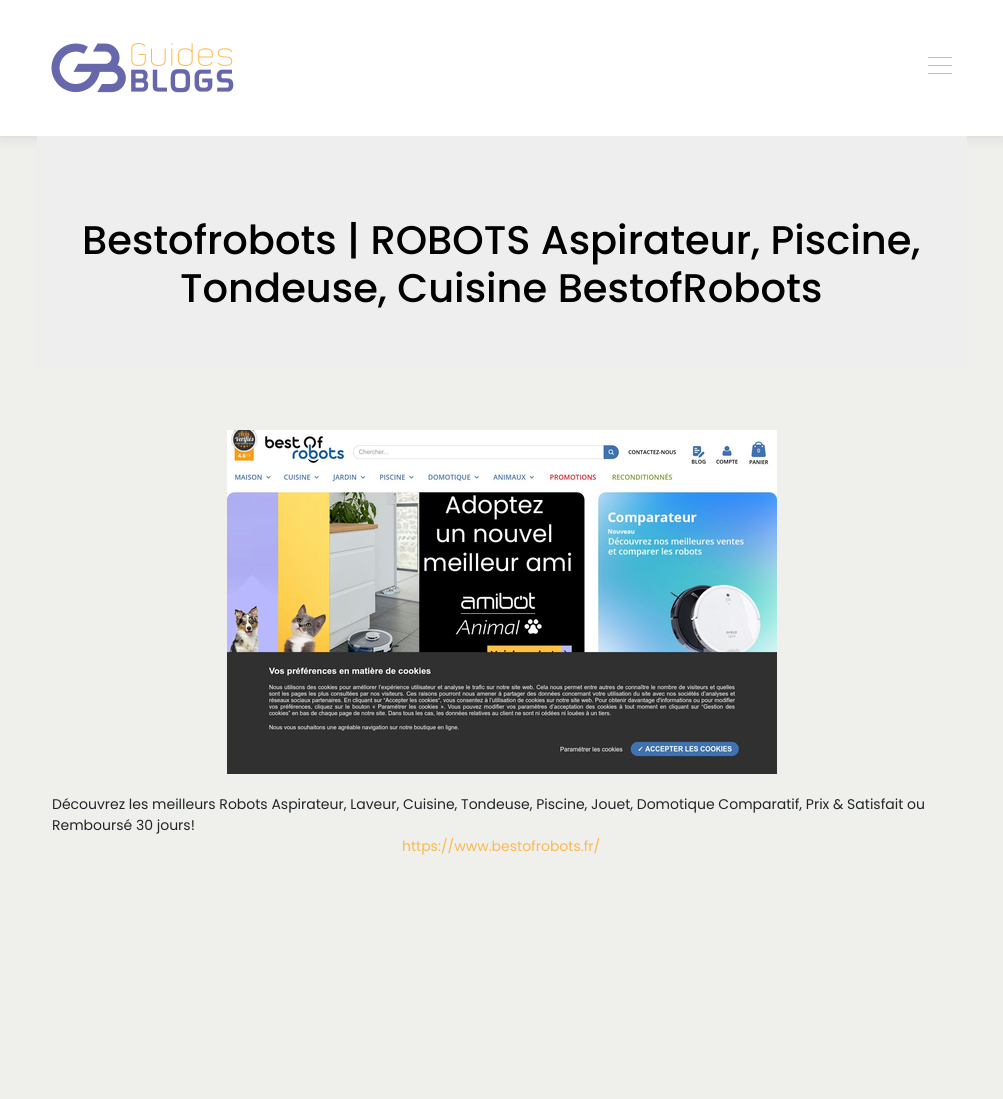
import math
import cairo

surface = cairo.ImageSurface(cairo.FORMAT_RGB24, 1003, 1099)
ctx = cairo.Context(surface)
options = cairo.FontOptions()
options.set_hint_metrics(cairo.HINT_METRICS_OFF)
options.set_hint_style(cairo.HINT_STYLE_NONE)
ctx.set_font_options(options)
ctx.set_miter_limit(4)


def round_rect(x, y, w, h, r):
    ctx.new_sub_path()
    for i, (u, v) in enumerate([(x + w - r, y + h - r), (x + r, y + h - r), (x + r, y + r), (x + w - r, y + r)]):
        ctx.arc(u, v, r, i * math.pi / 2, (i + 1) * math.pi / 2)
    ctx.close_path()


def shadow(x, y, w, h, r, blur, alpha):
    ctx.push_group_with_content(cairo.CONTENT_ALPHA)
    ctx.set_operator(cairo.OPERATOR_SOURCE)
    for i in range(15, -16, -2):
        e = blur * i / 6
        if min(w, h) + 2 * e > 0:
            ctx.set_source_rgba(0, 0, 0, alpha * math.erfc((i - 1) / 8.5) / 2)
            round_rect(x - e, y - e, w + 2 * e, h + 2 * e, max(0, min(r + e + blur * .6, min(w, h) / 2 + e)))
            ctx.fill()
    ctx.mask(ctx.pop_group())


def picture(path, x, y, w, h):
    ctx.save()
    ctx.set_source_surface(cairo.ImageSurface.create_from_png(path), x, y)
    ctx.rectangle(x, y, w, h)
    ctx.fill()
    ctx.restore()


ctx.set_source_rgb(0.937, 0.937, 0.922)
ctx.paint()
ctx.set_source_rgb(0, 0, 0)
shadow(0, 2, 1003, 136, 0, 6.5, 0.1)
ctx.set_source_rgb(1, 1, 1)
ctx.rectangle(0, 0, 1003, 136)
ctx.fill()
picture("img1.png", 51, 43, 183, 50)
ctx.set_source_rgb(0.98, 0.725, 0.31)
ctx.rectangle(928, 57, 24, 1)
ctx.fill()
ctx.rectangle(928, 65, 24, 1)
ctx.fill()
ctx.rectangle(928, 73, 24, 1)
ctx.fill()
ctx.set_source_rgb(0.933, 0.933, 0.933)
ctx.rectangle(37, 136, 930, 234)
ctx.fill()
ctx.select_font_face("Poppins Medium")
ctx.set_font_size(40)
ctx.set_source_rgb(0, 0, 0)
ctx.move_to(82, 254)
ctx.show_text("Bestofrobots | ROBOTS Aspirateur, Piscine,")
ctx.move_to(180, 302)
ctx.show_text("Tondeuse, Cuisine BestofRobots")
picture("img2.png", 227, 430, 550, 344)
ctx.select_font_face("Poppins")
ctx.set_font_size(14)
ctx.set_source_rgb(0.129, 0.145, 0.161)
ctx.move_to(52, 809)
ctx.show_text("Découvrez les meilleurs Robots Aspirateur, Laveur, Cuisine, Tondeuse, Piscine, Jouet, Domotique Comparatif, Prix & Satisfait ou")
ctx.move_to(52, 830)
ctx.show_text("Remboursé 30 jours!")
ctx.set_source_rgb(0.98, 0.725, 0.31)
ctx.move_to(402, 851)
ctx.show_text("https://www.bestofrobots.fr/")
surface.write_to_png("page.png")
